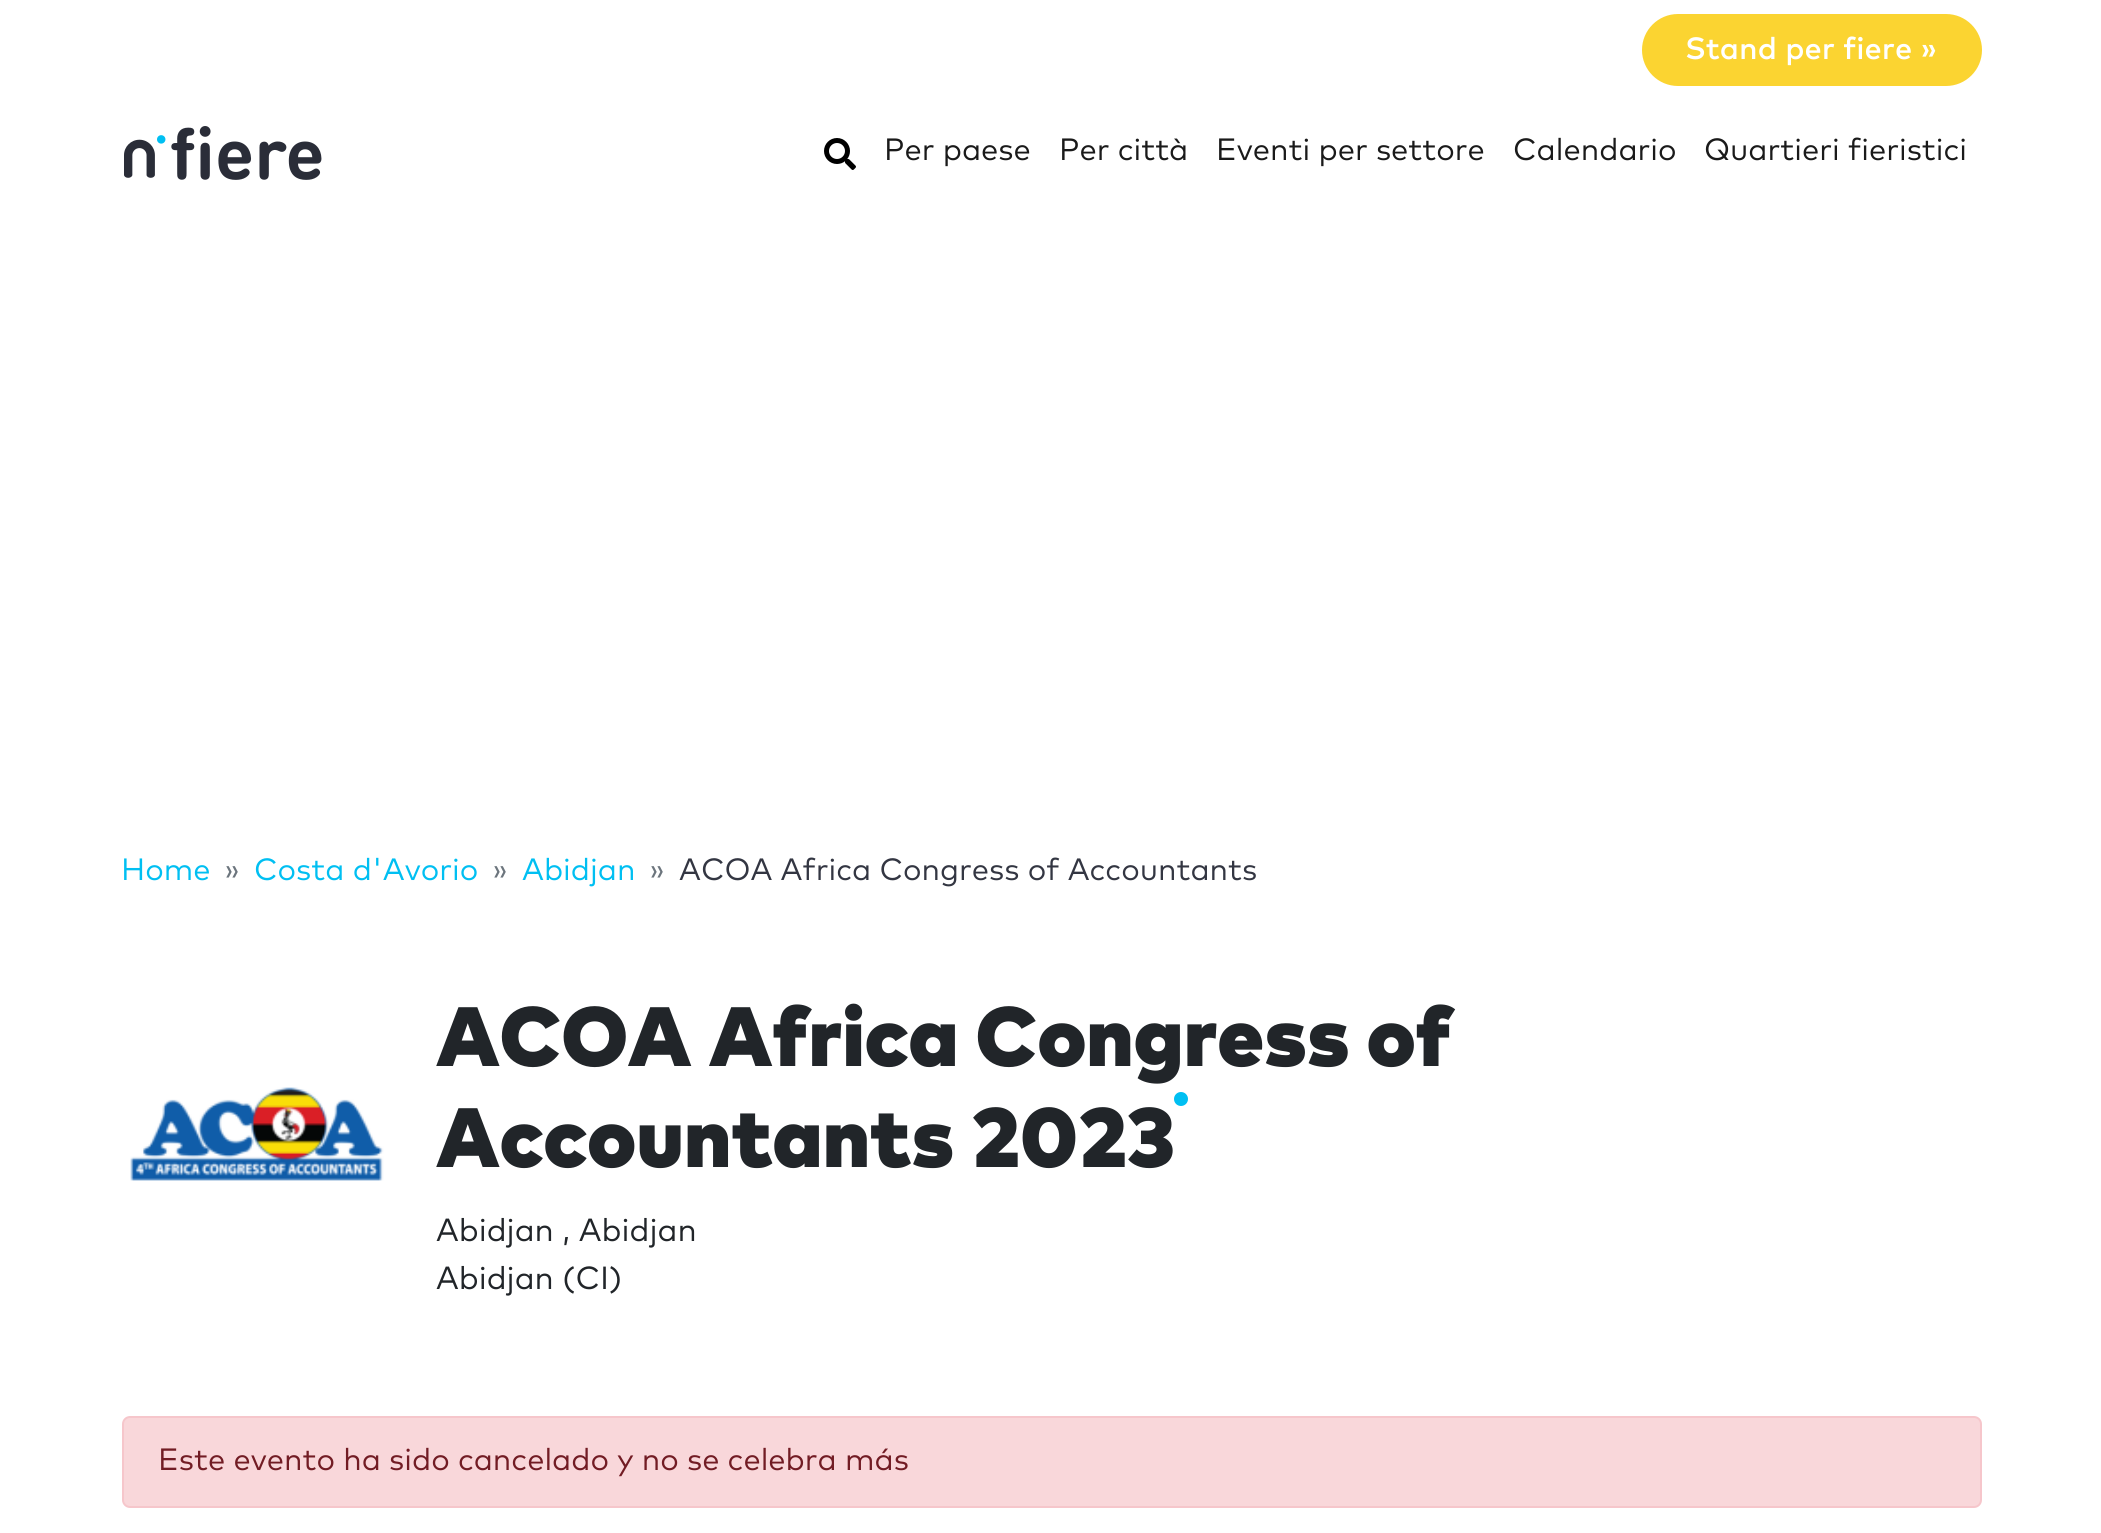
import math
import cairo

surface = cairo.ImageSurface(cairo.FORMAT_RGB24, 2101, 1533)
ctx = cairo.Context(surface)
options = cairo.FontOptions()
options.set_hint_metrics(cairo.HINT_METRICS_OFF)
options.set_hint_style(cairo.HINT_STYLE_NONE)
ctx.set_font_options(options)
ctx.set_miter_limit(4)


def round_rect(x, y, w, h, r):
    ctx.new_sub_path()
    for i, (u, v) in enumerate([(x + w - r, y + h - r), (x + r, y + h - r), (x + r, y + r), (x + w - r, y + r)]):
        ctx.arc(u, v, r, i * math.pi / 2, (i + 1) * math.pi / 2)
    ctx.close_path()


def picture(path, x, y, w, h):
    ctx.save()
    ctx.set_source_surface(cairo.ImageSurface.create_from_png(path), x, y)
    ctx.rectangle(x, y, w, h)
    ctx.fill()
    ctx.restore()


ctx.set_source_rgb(1, 1, 1)
ctx.paint()
ctx.set_source_rgb(0.984, 0.831, 0.192)
round_rect(1643, 15, 338, 70, 35)
ctx.fill_preserve()
ctx.stroke()
ctx.select_font_face("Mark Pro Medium")
ctx.set_font_size(30.8)
ctx.set_source_rgb(1, 1, 1)
ctx.move_to(1685, 59)
ctx.show_text("Stand per fiere »")
picture("img1.png", 124, 126, 198, 54)
picture("img2.png", 824, 138, 32, 32)
ctx.select_font_face("Mark Pro")
ctx.set_source_rgb(0.102, 0.102, 0.102)
ctx.move_to(884, 160)
ctx.show_text("Per paese")
ctx.move_to(1059, 160)
ctx.show_text("Per città")
ctx.move_to(1216, 160)
ctx.show_text("Eventi per settore")
ctx.move_to(1513, 160)
ctx.show_text("Calendario")
ctx.move_to(1704, 160)
ctx.show_text("Quartieri fieristici")
ctx.set_source_rgb(0, 0.749, 0.949)
ctx.move_to(121, 880)
ctx.show_text("Home")
ctx.set_source_rgb(0.424, 0.459, 0.49)
ctx.move_to(224, 880)
ctx.show_text("»")
ctx.set_source_rgb(0, 0.749, 0.949)
ctx.move_to(254, 880)
ctx.show_text("Costa d'Avorio")
ctx.set_source_rgb(0.424, 0.459, 0.49)
ctx.move_to(492, 880)
ctx.show_text("»")
ctx.set_source_rgb(0, 0.749, 0.949)
ctx.move_to(522, 880)
ctx.show_text("Abidjan")
ctx.set_source_rgb(0.424, 0.459, 0.49)
ctx.move_to(649, 880)
ctx.show_text("»")
ctx.set_source_rgb(0.2, 0.212, 0.259)
ctx.move_to(679, 880)
ctx.show_text("ACOA Africa Congress of Accountants")
picture("img3.png", 130, 1087, 254, 94)
ctx.select_font_face("Mark Pro Black")
ctx.set_font_size(84)
ctx.set_source_rgb(0.129, 0.145, 0.161)
ctx.move_to(436, 1066)
ctx.show_text("ACOA Africa Congress of")
ctx.set_source_rgb(0, 0.749, 0.949)
ctx.new_path()
ctx.arc(1181, 1099, 7, 0, 2 * math.pi)
ctx.fill()
ctx.set_source_rgb(0.129, 0.145, 0.161)
ctx.move_to(436, 1167)
ctx.show_text("Accountants 2023")
ctx.select_font_face("Mark Pro")
ctx.set_font_size(32)
ctx.move_to(436, 1241)
ctx.show_text("Abidjan , Abidjan")
ctx.move_to(436, 1289)
ctx.show_text("Abidjan (CI)")
ctx.set_source_rgb(0.973, 0.843, 0.855)
round_rect(123, 1417, 1858, 90, 7)
ctx.fill_preserve()
ctx.set_source_rgb(0.961, 0.776, 0.796)
ctx.stroke()
ctx.set_font_size(30.8)
ctx.set_source_rgb(0.447, 0.11, 0.141)
ctx.move_to(158, 1470)
ctx.show_text("Este evento ha sido cancelado y no se celebra más")
surface.write_to_png("page.png")
